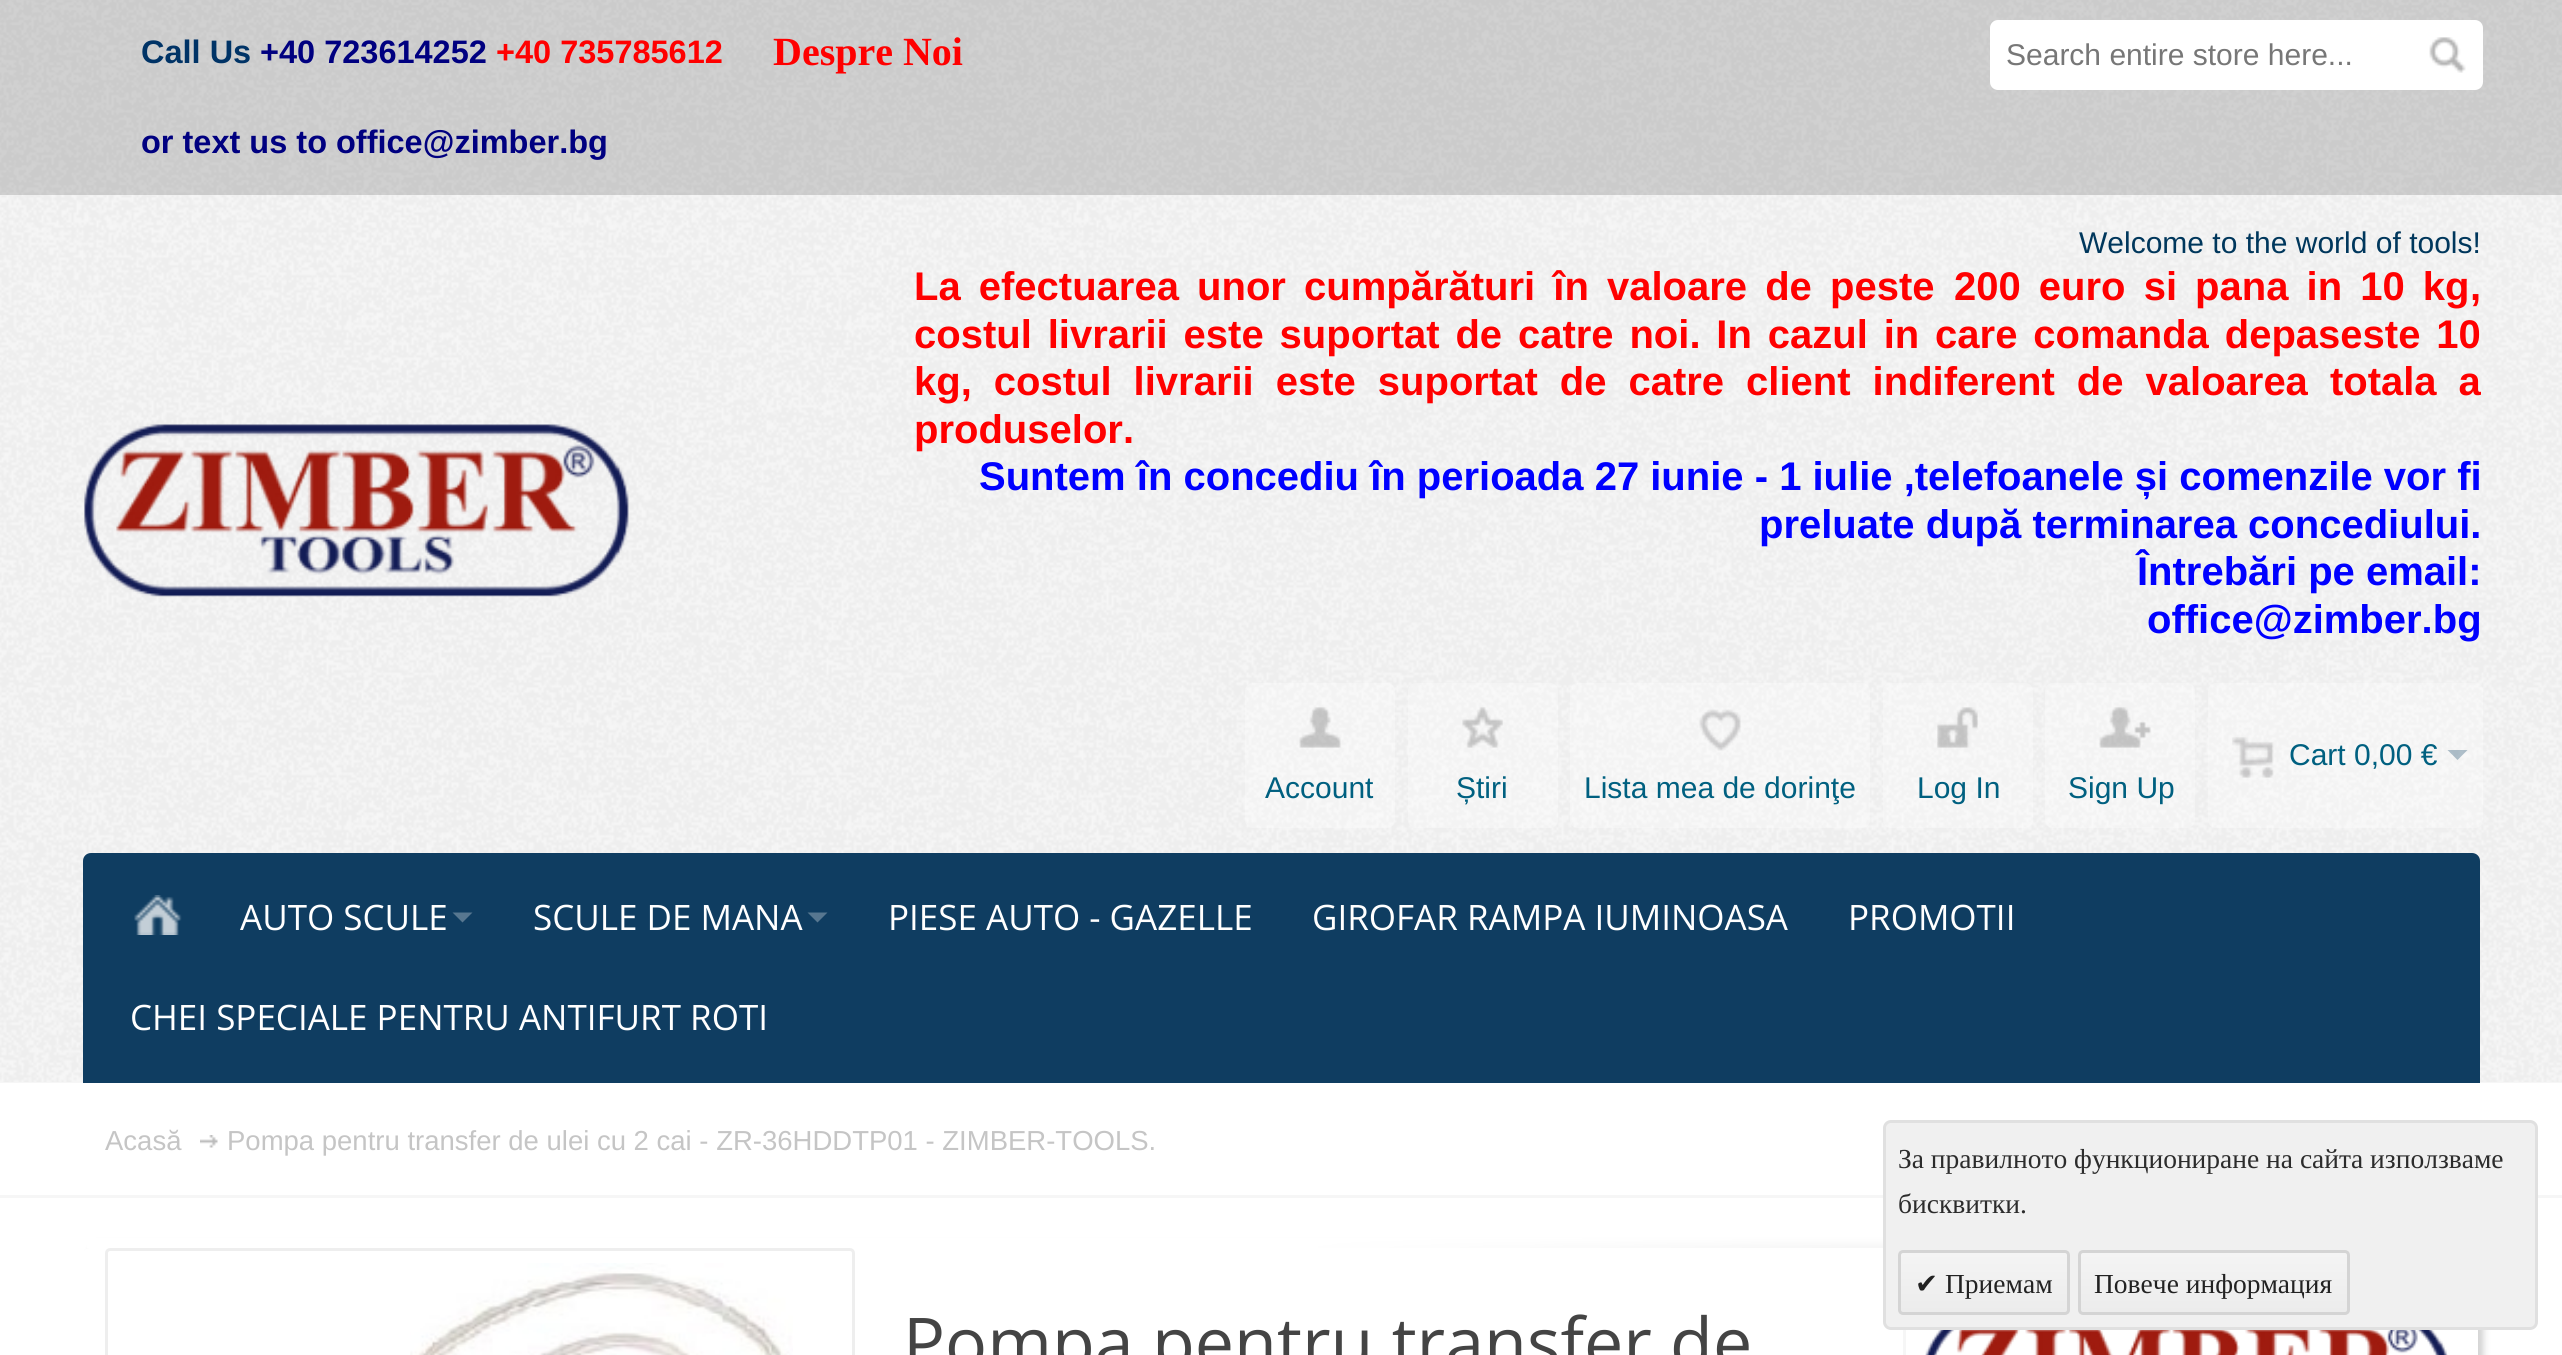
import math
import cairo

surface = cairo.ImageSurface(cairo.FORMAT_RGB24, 2562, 1355)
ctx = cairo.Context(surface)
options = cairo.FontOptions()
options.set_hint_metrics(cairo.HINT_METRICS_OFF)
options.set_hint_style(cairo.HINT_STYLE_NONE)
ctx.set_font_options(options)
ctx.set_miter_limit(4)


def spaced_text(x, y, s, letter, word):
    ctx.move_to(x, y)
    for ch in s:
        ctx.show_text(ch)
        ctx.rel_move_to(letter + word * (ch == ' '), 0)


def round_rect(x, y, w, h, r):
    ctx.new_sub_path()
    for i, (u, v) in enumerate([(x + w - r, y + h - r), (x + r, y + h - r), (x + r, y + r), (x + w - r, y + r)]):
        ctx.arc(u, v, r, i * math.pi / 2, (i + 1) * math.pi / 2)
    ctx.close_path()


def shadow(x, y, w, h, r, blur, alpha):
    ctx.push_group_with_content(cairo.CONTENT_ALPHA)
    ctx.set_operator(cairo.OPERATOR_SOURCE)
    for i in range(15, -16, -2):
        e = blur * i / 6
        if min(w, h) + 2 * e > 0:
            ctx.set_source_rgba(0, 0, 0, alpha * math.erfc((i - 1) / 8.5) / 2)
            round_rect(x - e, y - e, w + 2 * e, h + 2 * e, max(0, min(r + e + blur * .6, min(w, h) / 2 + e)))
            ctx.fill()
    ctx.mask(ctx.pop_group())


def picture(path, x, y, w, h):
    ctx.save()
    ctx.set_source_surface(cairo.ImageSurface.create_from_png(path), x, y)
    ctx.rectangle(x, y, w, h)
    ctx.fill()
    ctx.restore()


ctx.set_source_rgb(1, 1, 1)
ctx.paint()
ctx.set_source_rgb(0.961, 0.961, 0.961)
ctx.rectangle(0, 0, 2562, 1083)
ctx.fill()
picture("img1.png", 0, 0, 2562, 1082)
ctx.set_source_rgba(0, 0, 0, 0.15)
ctx.rectangle(0, 0, 2562, 195)
ctx.fill()
ctx.select_font_face("Liberation Sans", cairo.FONT_SLANT_NORMAL, cairo.FONT_WEIGHT_BOLD)
ctx.set_font_size(32.5)
ctx.set_source_rgb(0, 0.2, 0.4)
ctx.move_to(141, 63)
ctx.show_text("Call Us")
ctx.set_source_rgb(0, 0, 0.502)
ctx.move_to(260, 63)
ctx.show_text("+40 723614252")
ctx.set_source_rgb(1, 0, 0)
ctx.move_to(496, 63)
ctx.show_text("+40 735785612")
ctx.set_source_rgb(0, 0, 0.502)
ctx.move_to(141, 153)
ctx.show_text("or text us to office@zimber.bg")
ctx.select_font_face("Liberation Serif", cairo.FONT_SLANT_NORMAL, cairo.FONT_WEIGHT_BOLD)
ctx.set_font_size(40)
ctx.set_source_rgb(1, 0, 0)
ctx.move_to(773, 65)
ctx.show_text("Despre Noi")
ctx.set_source_rgb(1, 1, 1)
round_rect(1990, 20, 493, 70, 8)
ctx.fill()
ctx.select_font_face("Liberation Sans")
ctx.set_font_size(30)
ctx.set_source_rgb(0.467, 0.467, 0.467)
ctx.move_to(2006, 65)
ctx.show_text("Search entire store here...")
picture("img2.png", 2429, 37, 37, 36)
picture("img3.png", 84, 424, 545, 173)
ctx.set_source_rgb(0, 0.216, 0.361)
ctx.move_to(2079, 253)
ctx.show_text("Welcome to the world of tools!")
ctx.select_font_face("Liberation Sans", cairo.FONT_SLANT_NORMAL, cairo.FONT_WEIGHT_BOLD)
ctx.set_font_size(40)
ctx.set_source_rgb(1, 0, 0)
spaced_text(914, 300, "La efectuarea unor cumpărături în valoare de peste", 0, 7)
spaced_text(1954, 300, "200 euro si pana in 10 kg", 0, 7)
ctx.move_to(2470, 300)
ctx.show_text(",")
spaced_text(914, 348, "costul livrarii este suportat de catre noi. In cazul in care comanda depaseste 10", 0, 4.75)
spaced_text(914, 395, "kg, costul livrarii este suportat de catre client indiferent de valoarea totala a", 0, 10.9)
ctx.move_to(914, 443)
ctx.show_text("produselor.")
ctx.set_source_rgb(0, 0, 1)
ctx.move_to(979, 490)
ctx.show_text("Suntem în concediu în perioada 27 iunie - 1 iulie ,telefoanele și comenzile vor fi")
ctx.move_to(1759, 538)
ctx.show_text("preluate după terminarea concediului.")
ctx.move_to(2137, 585)
ctx.show_text("Întrebări pe email:")
ctx.move_to(2147, 633)
ctx.show_text("office@zimber.bg")
ctx.set_source_rgba(1, 1, 1, 0.3)
round_rect(2208, 683, 275, 145, 8)
ctx.fill()
picture("img4.png", 2232, 737, 42, 41)
ctx.select_font_face("Liberation Sans")
ctx.set_font_size(30)
ctx.set_source_rgb(0, 0.376, 0.502)
ctx.move_to(2289, 765)
ctx.show_text("Cart 0,00 €")
ctx.set_source_rgba(0, 0.216, 0.361, 0.3)
ctx.new_path()
ctx.move_to(2447.5, 750)
ctx.line_to(2467.5, 750)
ctx.line_to(2457.5, 760)
ctx.close_path()
ctx.fill()
ctx.set_source_rgba(1, 1, 1, 0.3)
round_rect(1245, 683, 150, 145, 8)
ctx.fill()
picture("img5.png", 1299, 707, 42, 41)
ctx.set_source_rgb(0, 0.376, 0.502)
ctx.move_to(1265, 798)
ctx.show_text("Account")
ctx.set_source_rgba(1, 1, 1, 0.3)
round_rect(1408, 683, 150, 145, 8)
ctx.fill()
picture("img6.png", 1462, 707, 41, 41)
ctx.set_source_rgb(0, 0.376, 0.502)
ctx.move_to(1456, 798)
ctx.show_text("Știri")
ctx.set_source_rgba(1, 1, 1, 0.3)
round_rect(1570, 683, 300, 145, 8)
ctx.fill()
picture("img7.png", 1699, 709, 42, 42)
ctx.set_source_rgb(0, 0.376, 0.502)
ctx.move_to(1584, 798)
ctx.show_text("Lista mea de dorinţe")
ctx.set_source_rgba(1, 1, 1, 0.3)
round_rect(1883, 683, 150, 145, 8)
ctx.fill()
picture("img8.png", 1937, 707, 41, 41)
ctx.set_source_rgb(0, 0.376, 0.502)
ctx.move_to(1917, 798)
ctx.show_text("Log In")
ctx.set_source_rgba(1, 1, 1, 0.3)
round_rect(2045, 683, 150, 145, 8)
ctx.fill()
picture("img9.png", 2099, 707, 52, 41)
ctx.set_source_rgb(0, 0.376, 0.502)
ctx.move_to(2068, 798)
ctx.show_text("Sign Up")
ctx.set_source_rgb(0.059, 0.239, 0.38)
ctx.new_path()
ctx.move_to(91, 853)
ctx.line_to(2472, 853)
ctx.curve_to(2476.5, 853, 2480, 856.5, 2480, 861)
ctx.line_to(2480, 1083)
ctx.line_to(83, 1083)
ctx.line_to(83, 861)
ctx.curve_to(83, 856.5, 86.5, 853, 91, 853)
ctx.close_path()
ctx.fill()
picture("img10.png", 134, 895, 48, 40)
ctx.select_font_face("Open Sans")
ctx.set_font_size(35)
ctx.set_source_rgb(1, 1, 1)
ctx.move_to(240, 930)
ctx.show_text("AUTO SCULE")
ctx.set_source_rgb(0.341, 0.467, 0.565)
ctx.new_path()
ctx.move_to(452.5, 912.5)
ctx.line_to(472.5, 912.5)
ctx.line_to(462.5, 922.5)
ctx.close_path()
ctx.fill()
ctx.set_source_rgb(1, 1, 1)
ctx.move_to(533, 930)
ctx.show_text("SCULE DE MANA")
ctx.set_source_rgb(0.341, 0.467, 0.565)
ctx.new_path()
ctx.move_to(807.5, 912.5)
ctx.line_to(827.5, 912.5)
ctx.line_to(817.5, 922.5)
ctx.close_path()
ctx.fill()
ctx.set_source_rgb(1, 1, 1)
ctx.move_to(888, 930)
ctx.show_text("PIESE AUTO - GAZELLE")
ctx.move_to(1312, 930)
ctx.show_text("GIROFAR RAMPA IUMINOASA")
ctx.move_to(1848, 930)
ctx.show_text("PROMOTII")
ctx.move_to(130, 1030)
ctx.show_text("CHEI SPECIALE PENTRU ANTIFURT ROTI")
ctx.set_source_rgb(0.961, 0.961, 0.961)
ctx.rectangle(0, 1195, 2562, 3)
ctx.fill()
ctx.select_font_face("Liberation Sans")
ctx.set_font_size(27.5)
ctx.set_source_rgb(0.773, 0.773, 0.773)
ctx.move_to(105, 1150)
ctx.show_text("Acasă")
picture("img11.png", 200, 1135, 18, 13)
ctx.move_to(227, 1150)
ctx.show_text("Pompa pentru transfer de ulei cu 2 cai - ZR-36HDDTP01 - ZIMBER-TOOLS.")
ctx.save()
ctx.set_fill_rule(cairo.FILL_RULE_EVEN_ODD)
ctx.new_path()
ctx.move_to(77, 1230)
ctx.line_to(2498, 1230)
ctx.line_to(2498, 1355)
ctx.line_to(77, 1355)
ctx.close_path()
ctx.move_to(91, 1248)
ctx.line_to(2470, 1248)
ctx.curve_to(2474.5, 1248, 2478, 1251.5, 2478, 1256)
ctx.line_to(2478, 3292)
ctx.curve_to(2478, 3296.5, 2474.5, 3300, 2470, 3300)
ctx.line_to(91, 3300)
ctx.curve_to(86.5, 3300, 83, 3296.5, 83, 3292)
ctx.line_to(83, 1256)
ctx.curve_to(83, 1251.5, 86.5, 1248, 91, 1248)
ctx.close_path()
ctx.clip()
ctx.set_source_rgb(0, 0, 0)
shadow(90, 1243, 2395, 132, 8, 4, 0.08)
ctx.restore()
ctx.save()
ctx.set_fill_rule(cairo.FILL_RULE_EVEN_ODD)
ctx.new_path()
ctx.move_to(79, 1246)
ctx.line_to(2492, 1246)
ctx.line_to(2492, 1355)
ctx.line_to(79, 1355)
ctx.close_path()
ctx.move_to(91, 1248)
ctx.line_to(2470, 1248)
ctx.curve_to(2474.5, 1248, 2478, 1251.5, 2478, 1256)
ctx.line_to(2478, 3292)
ctx.curve_to(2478, 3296.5, 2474.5, 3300, 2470, 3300)
ctx.line_to(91, 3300)
ctx.curve_to(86.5, 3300, 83, 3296.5, 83, 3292)
ctx.line_to(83, 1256)
ctx.curve_to(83, 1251.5, 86.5, 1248, 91, 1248)
ctx.close_path()
ctx.clip()
ctx.set_source_rgb(0, 0, 0)
shadow(88, 1255, 2395, 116, 8, 2.5, 0.1)
ctx.restore()
gradient = cairo.LinearGradient(83, 1235, 2483, 1235)
gradient.add_color_stop_rgba(0.5, 1, 1, 1, 1)
gradient.add_color_stop_rgba(1, 1, 1, 1, 0)
ctx.set_source(gradient)
ctx.rectangle(87, 1238, 1796, 10)
ctx.fill()
round_rect(106.5, 1249.5, 747, 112, 3.5)
ctx.set_source_rgb(0.933, 0.933, 0.933)
ctx.set_line_width(3)
ctx.stroke()
picture("img12.png", 410, 1263, 383, 92)
ctx.select_font_face("Open Sans")
ctx.set_font_size(70)
ctx.set_source_rgb(0.267, 0.267, 0.267)
ctx.move_to(903, 1368)
ctx.show_text("Pompa pentru transfer de")
ctx.set_source_rgb(0.961, 0.961, 0.961)
ctx.rectangle(1903, 1330, 3, 25)
ctx.fill()
picture("img13.png", 1925, 1330, 523, 25)
ctx.set_source_rgb(0.941, 0.941, 0.941)
round_rect(1884.5, 1121.5, 652, 207, 6.5)
ctx.fill_preserve()
ctx.set_source_rgb(0.878, 0.878, 0.878)
ctx.stroke()
ctx.select_font_face("Liberation Serif")
ctx.set_font_size(27.5)
ctx.set_source_rgb(0.173, 0.173, 0.173)
ctx.move_to(1898, 1168)
ctx.show_text("За правилното функциониране на сайта използваме")
ctx.move_to(1898, 1213)
ctx.show_text("бисквитки.")
ctx.save()
round_rect(1898, 1250, 172, 65, 5)
ctx.clip()
gradient = cairo.LinearGradient(1984, 1253, 1984, 1313)
gradient.add_color_stop_rgba(0, 0.957, 0.957, 0.957, 1)
gradient.add_color_stop_rgba(1, 0.925, 0.925, 0.925, 1)
ctx.set_source(gradient)
ctx.rectangle(1898, 1253, 172, 60)
ctx.fill()
ctx.restore()
round_rect(1899.5, 1251.5, 169, 62, 3.5)
ctx.set_source_rgb(0.831, 0.831, 0.831)
ctx.stroke()
ctx.select_font_face("DejaVu Sans")
ctx.set_source_rgb(0.133, 0.133, 0.133)
ctx.move_to(1915, 1293)
ctx.show_text("✔")
ctx.select_font_face("Liberation Serif")
ctx.move_to(1945, 1293)
ctx.show_text("Приемам")
ctx.save()
round_rect(2078, 1250, 272, 65, 5)
ctx.clip()
gradient = cairo.LinearGradient(2214, 1253, 2214, 1313)
gradient.add_color_stop_rgba(0, 0.957, 0.957, 0.957, 1)
gradient.add_color_stop_rgba(1, 0.925, 0.925, 0.925, 1)
ctx.set_source(gradient)
ctx.rectangle(2078, 1253, 272, 60)
ctx.fill()
ctx.restore()
round_rect(2079.5, 1251.5, 269, 62, 3.5)
ctx.set_source_rgb(0.831, 0.831, 0.831)
ctx.stroke()
ctx.set_source_rgb(0.133, 0.133, 0.133)
ctx.move_to(2094, 1293)
ctx.show_text("Повече информация")
surface.write_to_png("page.png")
